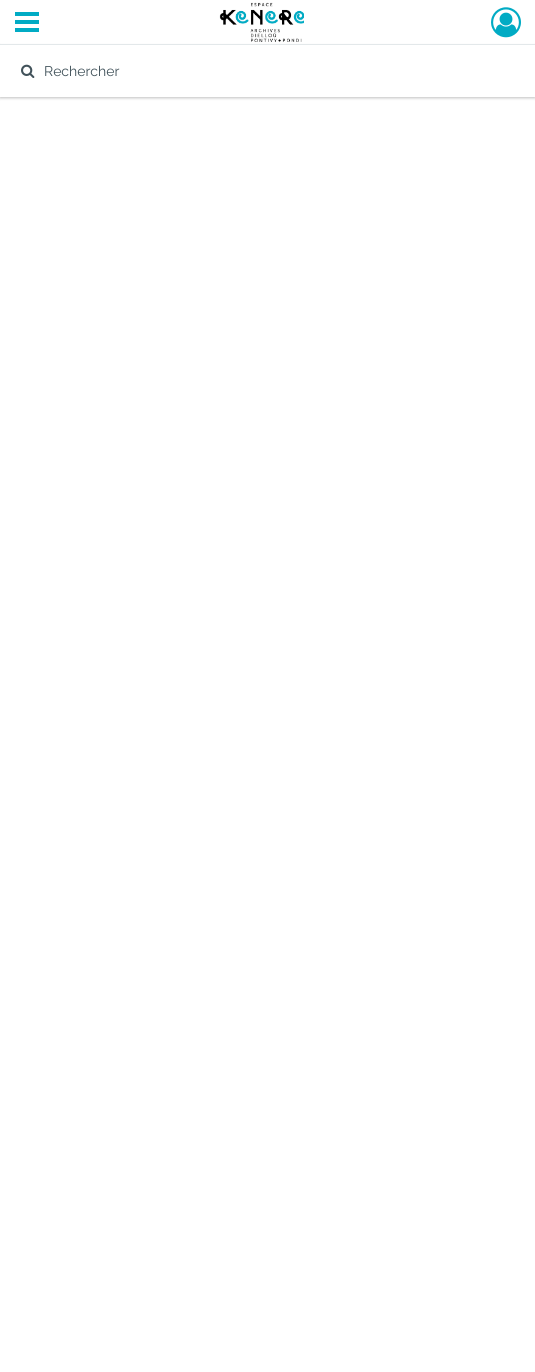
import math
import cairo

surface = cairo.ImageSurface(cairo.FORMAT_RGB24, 535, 1372)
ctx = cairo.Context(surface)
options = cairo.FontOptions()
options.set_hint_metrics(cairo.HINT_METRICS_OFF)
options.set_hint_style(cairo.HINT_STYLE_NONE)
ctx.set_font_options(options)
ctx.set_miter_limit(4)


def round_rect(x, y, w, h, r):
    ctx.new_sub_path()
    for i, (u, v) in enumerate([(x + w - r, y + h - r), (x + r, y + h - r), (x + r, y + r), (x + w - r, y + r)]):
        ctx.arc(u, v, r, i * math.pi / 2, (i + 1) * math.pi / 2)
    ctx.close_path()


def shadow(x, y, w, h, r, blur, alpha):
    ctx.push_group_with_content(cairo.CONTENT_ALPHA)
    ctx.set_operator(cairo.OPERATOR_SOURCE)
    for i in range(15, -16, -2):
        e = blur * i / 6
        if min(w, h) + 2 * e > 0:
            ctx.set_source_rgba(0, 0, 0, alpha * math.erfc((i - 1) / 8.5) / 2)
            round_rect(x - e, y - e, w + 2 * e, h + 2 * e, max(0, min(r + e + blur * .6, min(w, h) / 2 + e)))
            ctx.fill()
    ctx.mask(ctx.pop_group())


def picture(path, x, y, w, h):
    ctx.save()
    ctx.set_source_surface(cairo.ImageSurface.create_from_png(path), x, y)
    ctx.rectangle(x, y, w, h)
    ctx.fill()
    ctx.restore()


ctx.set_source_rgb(1, 1, 1)
ctx.paint()
ctx.set_source_rgb(0.925, 0.945, 0.957)
ctx.rectangle(0, 44, 535, 1)
ctx.fill()
ctx.set_source_rgb(0.004, 0.671, 0.769)
ctx.rectangle(15, 12, 24, 4)
ctx.fill()
ctx.rectangle(15, 20, 24, 4)
ctx.fill()
ctx.rectangle(15, 28, 24, 4)
ctx.fill()
picture("img1.png", 219, 2, 85, 40)
picture("img2.png", 491, 7, 30, 31)
ctx.save()
ctx.set_fill_rule(cairo.FILL_RULE_EVEN_ODD)
ctx.new_path()
ctx.move_to(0, 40)
ctx.line_to(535, 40)
ctx.line_to(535, 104)
ctx.line_to(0, 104)
ctx.close_path()
ctx.move_to(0, 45)
ctx.line_to(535, 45)
ctx.line_to(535, 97)
ctx.line_to(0, 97)
ctx.close_path()
ctx.clip()
ctx.set_source_rgb(0, 0, 0)
shadow(0, 46, 535, 52, 0, 1.5, 0.25)
ctx.restore()
picture("img3.png", 21, 64, 14, 14)
ctx.select_font_face("Raleway")
ctx.set_font_size(14)
ctx.set_source_rgb(0.255, 0.322, 0.353)
ctx.move_to(44, 76)
ctx.show_text("Rechercher")
surface.write_to_png("page.png")
